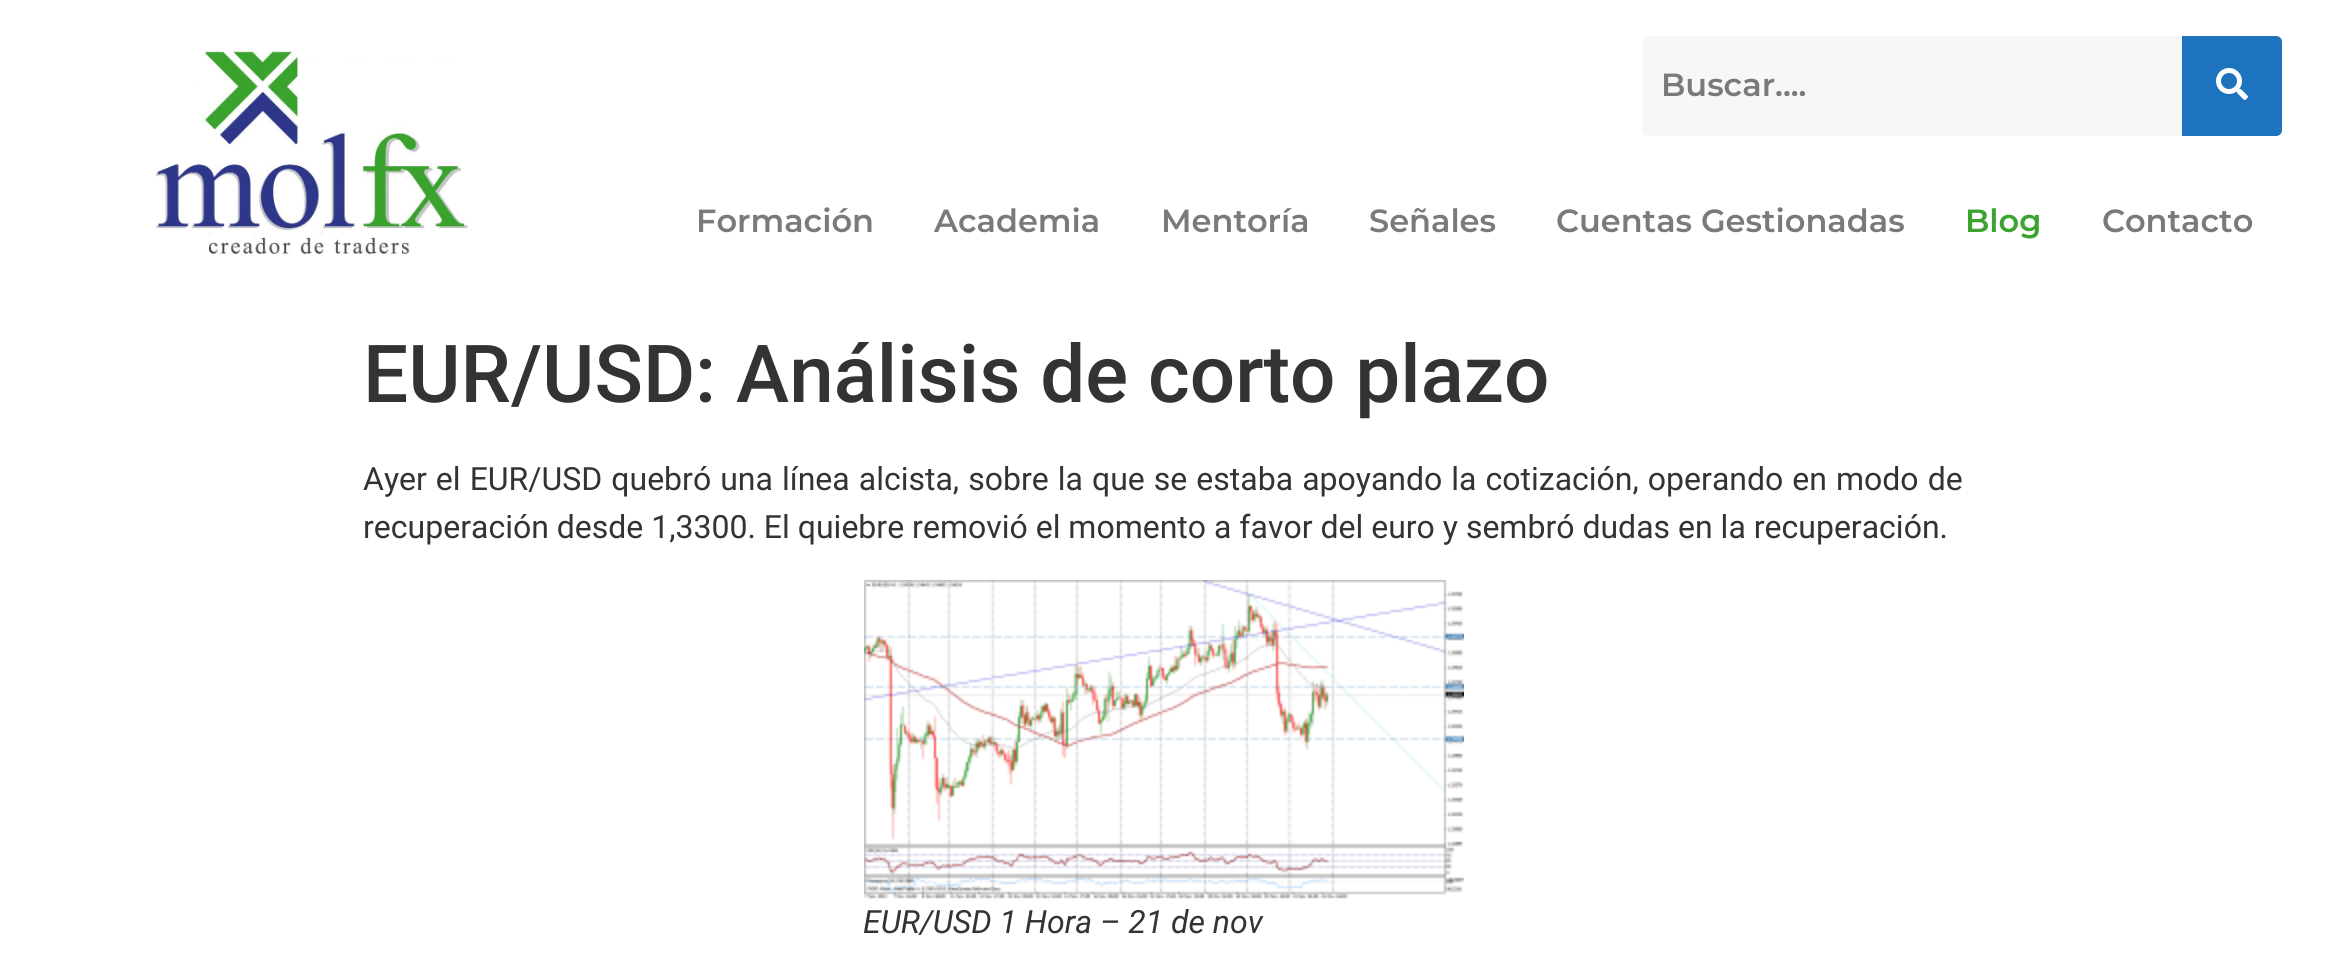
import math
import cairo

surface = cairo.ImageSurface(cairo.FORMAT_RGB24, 2326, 960)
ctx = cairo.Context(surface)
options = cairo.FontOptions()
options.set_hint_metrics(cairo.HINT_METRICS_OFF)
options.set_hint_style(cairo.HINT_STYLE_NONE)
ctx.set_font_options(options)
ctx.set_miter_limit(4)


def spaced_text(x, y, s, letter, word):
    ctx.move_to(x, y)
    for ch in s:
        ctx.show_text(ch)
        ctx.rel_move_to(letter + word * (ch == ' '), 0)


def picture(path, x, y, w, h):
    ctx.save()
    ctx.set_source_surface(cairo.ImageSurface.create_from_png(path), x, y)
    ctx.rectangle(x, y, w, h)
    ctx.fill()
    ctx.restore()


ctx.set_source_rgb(1, 1, 1)
ctx.paint()
picture("img1.png", 155, 49, 313, 207)
ctx.set_source_rgb(0.965, 0.965, 0.965)
ctx.new_path()
ctx.move_to(1648, 36)
ctx.line_to(2182, 36)
ctx.line_to(2182, 136)
ctx.line_to(1648, 136)
ctx.curve_to(1644.5, 136, 1642, 133.5, 1642, 130)
ctx.line_to(1642, 42)
ctx.curve_to(1642, 38.5, 1644.5, 36, 1648, 36)
ctx.close_path()
ctx.fill()
ctx.select_font_face("Montserrat SemiBold")
ctx.set_font_size(32)
ctx.set_source_rgb(0.478, 0.478, 0.478)
ctx.move_to(1661, 96)
ctx.show_text("Buscar....")
ctx.set_source_rgb(0.114, 0.451, 0.745)
ctx.new_path()
ctx.move_to(2182, 36)
ctx.line_to(2276, 36)
ctx.curve_to(2279.5, 36, 2282, 38.5, 2282, 42)
ctx.line_to(2282, 130)
ctx.curve_to(2282, 133.5, 2279.5, 136, 2276, 136)
ctx.line_to(2182, 136)
ctx.close_path()
ctx.fill()
picture("img2.png", 2216, 68, 32, 32)
ctx.set_source_rgb(0.478, 0.478, 0.478)
ctx.move_to(696, 232)
ctx.show_text("Formación")
ctx.move_to(934, 232)
ctx.show_text("Academia")
ctx.move_to(1161, 232)
ctx.show_text("Mentoría")
ctx.move_to(1369, 232)
ctx.show_text("Señales")
ctx.move_to(1556, 232)
ctx.show_text("Cuentas Gestionadas")
ctx.set_source_rgb(0.235, 0.639, 0.188)
ctx.move_to(1965, 232)
ctx.show_text("Blog")
ctx.set_source_rgb(0.478, 0.478, 0.478)
ctx.move_to(2102, 232)
ctx.show_text("Contacto")
ctx.select_font_face("Roboto Medium")
ctx.set_font_size(80)
ctx.set_source_rgb(0.2, 0.2, 0.2)
ctx.move_to(363, 402)
ctx.show_text("EUR/USD: Análisis de corto plazo")
ctx.select_font_face("Roboto")
ctx.set_font_size(32)
spaced_text(363, 490, "Ayer el EUR/USD quebró una línea alcista, sobre la que se estaba apoyando la cotización, operando en modo de", 0, 1.1)
ctx.move_to(363, 538)
ctx.show_text("recuperación desde 1,3300. El quiebre removió el momento a favor del euro y sembró dudas en la recuperación.")
picture("img3.png", 864, 580, 600, 319)
ctx.select_font_face("Roboto", cairo.FONT_SLANT_ITALIC)
ctx.move_to(863, 933)
ctx.show_text("EUR/USD 1 Hora – 21 de nov")
surface.write_to_png("page.png")
